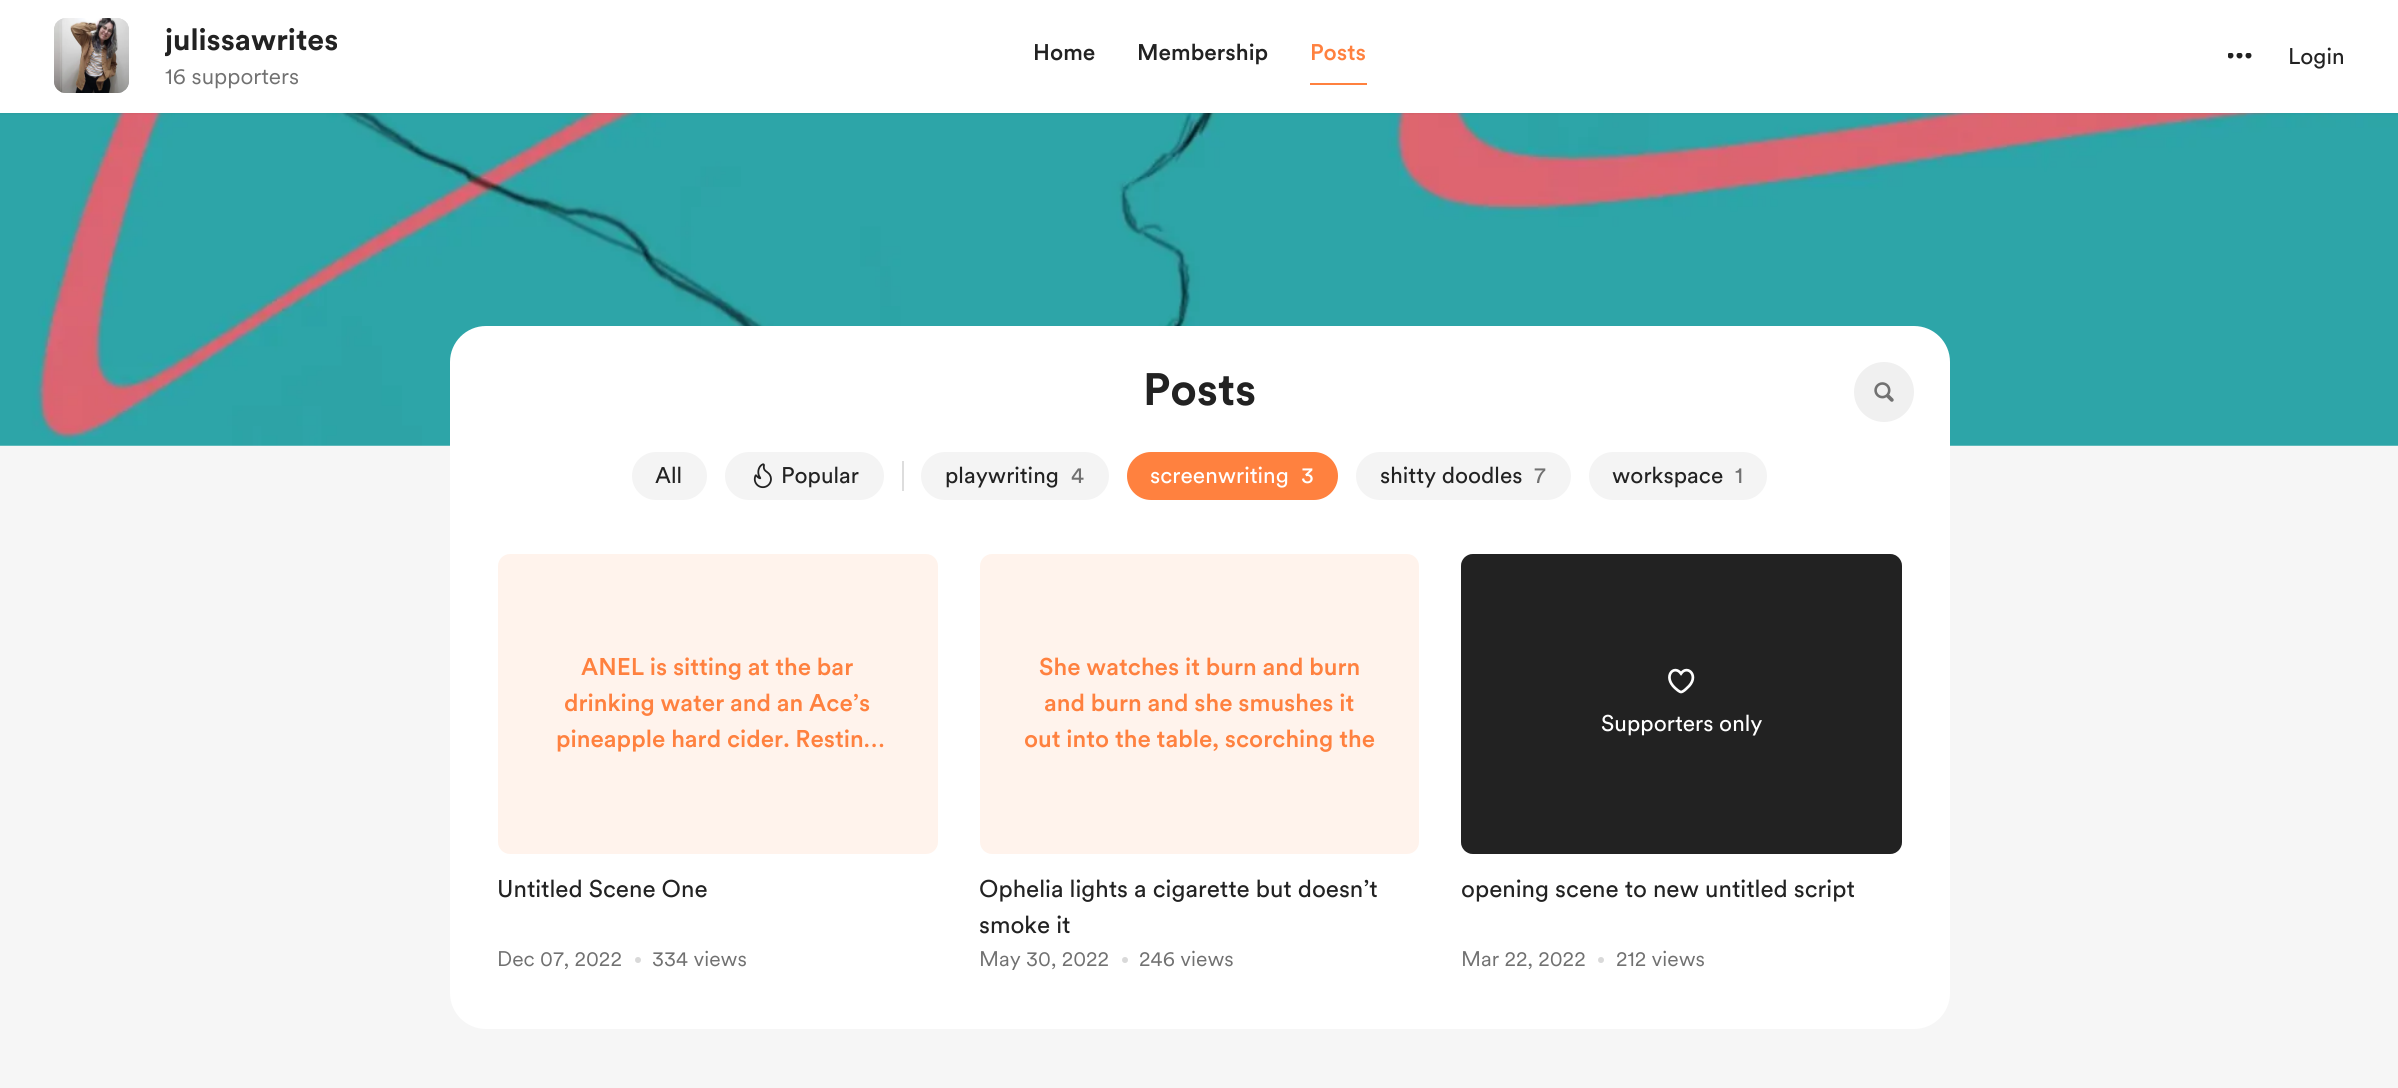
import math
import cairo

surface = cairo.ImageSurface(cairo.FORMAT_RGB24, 2398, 1088)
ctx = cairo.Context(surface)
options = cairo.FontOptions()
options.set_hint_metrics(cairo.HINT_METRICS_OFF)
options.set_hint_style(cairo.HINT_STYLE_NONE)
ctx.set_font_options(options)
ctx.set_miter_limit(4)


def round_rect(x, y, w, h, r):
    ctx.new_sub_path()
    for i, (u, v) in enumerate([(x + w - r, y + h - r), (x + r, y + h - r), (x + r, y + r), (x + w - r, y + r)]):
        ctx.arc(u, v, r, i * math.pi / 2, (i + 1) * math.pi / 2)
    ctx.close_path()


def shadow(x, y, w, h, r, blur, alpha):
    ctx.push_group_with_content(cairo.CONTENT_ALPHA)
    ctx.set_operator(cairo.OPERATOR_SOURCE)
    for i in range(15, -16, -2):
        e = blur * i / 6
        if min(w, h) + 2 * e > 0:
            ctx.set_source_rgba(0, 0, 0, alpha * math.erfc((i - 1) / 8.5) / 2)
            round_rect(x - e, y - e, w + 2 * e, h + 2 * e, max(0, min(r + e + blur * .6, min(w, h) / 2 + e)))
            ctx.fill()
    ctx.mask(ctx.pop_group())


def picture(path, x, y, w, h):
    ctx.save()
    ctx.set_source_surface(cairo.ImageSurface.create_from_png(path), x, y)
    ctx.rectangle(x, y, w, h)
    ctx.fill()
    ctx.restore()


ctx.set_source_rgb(0.961, 0.961, 0.961)
ctx.paint()
picture("img4.png", 0, 113, 2398, 333)
ctx.set_source_rgb(0, 0, 0)
shadow(0, 2, 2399, 112, 0, 1, 0.06)
ctx.set_source_rgb(1, 1, 1)
ctx.rectangle(0, 0, 2398, 113)
ctx.fill()
picture("img1.png", 54, 18, 75, 75)
picture("img2.png", 54, 18, 75, 75)
ctx.save()
ctx.rectangle(165, 18, 174, 42)
ctx.clip()
ctx.select_font_face("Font", cairo.FONT_SLANT_NORMAL, cairo.FONT_WEIGHT_BOLD)
ctx.set_font_size(30)
ctx.set_source_rgb(0.133, 0.133, 0.133)
ctx.move_to(165, 50)
ctx.show_text("julissawrites")
ctx.restore()
ctx.select_font_face("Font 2")
ctx.set_font_size(22.5)
ctx.set_source_rgb(0.443, 0.443, 0.443)
ctx.move_to(165, 84)
ctx.show_text("16 supporters")
ctx.select_font_face("Font Medium")
ctx.set_source_rgb(0.133, 0.133, 0.133)
ctx.move_to(1033, 60)
ctx.show_text("Home")
ctx.move_to(1137, 60)
ctx.show_text("Membership")
ctx.set_source_rgb(1, 0.506, 0.247)
ctx.move_to(1310, 60)
ctx.show_text("Posts")
ctx.rectangle(1310, 83, 57, 2)
ctx.fill()
picture("img3.png", 2228, 53, 24, 6)
ctx.select_font_face("Font")
ctx.set_source_rgb(0.133, 0.133, 0.133)
ctx.move_to(2288, 64)
ctx.show_text("Login")
picture("img5.png", 0, 445, 2398, 1)
ctx.set_source_rgb(1, 1, 1)
round_rect(450, 326, 1500, 703, 36)
ctx.fill()
ctx.select_font_face("Font", cairo.FONT_SLANT_NORMAL, cairo.FONT_WEIGHT_BOLD)
ctx.set_font_size(45)
ctx.set_source_rgb(0.133, 0.133, 0.133)
ctx.move_to(1143, 405)
ctx.show_text("Posts")
ctx.set_source_rgb(0.941, 0.941, 0.941)
ctx.new_path()
ctx.arc(1884, 392, 30, 0, 2 * math.pi)
ctx.fill()
picture("img6.png", 1874, 382, 20, 20)
ctx.set_source_rgb(0.957, 0.957, 0.957)
round_rect(632, 452, 75, 48, 24)
ctx.fill()
ctx.select_font_face("Font")
ctx.set_font_size(22.5)
ctx.set_source_rgb(0.133, 0.133, 0.133)
ctx.move_to(655, 483)
ctx.show_text("All")
ctx.set_source_rgb(0.957, 0.957, 0.957)
round_rect(725, 452, 159, 48, 24)
ctx.fill()
picture("img7.png", 753, 463, 19, 26)
ctx.set_source_rgb(0.133, 0.133, 0.133)
ctx.move_to(781, 483)
ctx.show_text("Popular")
ctx.set_source_rgb(0.867, 0.867, 0.867)
ctx.rectangle(902, 461, 2, 30)
ctx.fill()
ctx.set_source_rgb(0.957, 0.957, 0.957)
round_rect(921, 452, 188, 48, 24)
ctx.fill()
ctx.set_source_rgb(0.133, 0.133, 0.133)
ctx.move_to(945, 483)
ctx.show_text("playwriting")
ctx.set_source_rgb(0.443, 0.443, 0.443)
ctx.move_to(1071, 483)
ctx.show_text("4")
ctx.set_source_rgb(1, 0.506, 0.247)
round_rect(1127, 452, 211, 48, 24)
ctx.fill()
ctx.set_source_rgb(1, 1, 1)
ctx.move_to(1150, 483)
ctx.show_text("screenwriting")
ctx.move_to(1301, 483)
ctx.show_text("3")
ctx.set_source_rgb(0.957, 0.957, 0.957)
round_rect(1356, 452, 215, 48, 24)
ctx.fill()
ctx.set_source_rgb(0.133, 0.133, 0.133)
ctx.move_to(1380, 483)
ctx.show_text("shitty doodles")
ctx.set_source_rgb(0.443, 0.443, 0.443)
ctx.move_to(1534, 483)
ctx.show_text("7")
ctx.set_source_rgb(0.957, 0.957, 0.957)
round_rect(1589, 452, 178, 48, 24)
ctx.fill()
ctx.set_source_rgb(0.133, 0.133, 0.133)
ctx.move_to(1612, 483)
ctx.show_text("workspace")
ctx.set_source_rgb(0.443, 0.443, 0.443)
ctx.move_to(1735, 483)
ctx.show_text("1")
ctx.set_source_rgb(1, 0.953, 0.925)
round_rect(498, 554, 440, 300, 12)
ctx.fill()
ctx.select_font_face("Font Medium")
ctx.set_font_size(24)
ctx.set_source_rgb(1, 0.506, 0.247)
ctx.move_to(581, 675)
ctx.show_text("ANEL is sitting at the bar")
ctx.move_to(564, 711)
ctx.show_text("drinking water and an Ace’s")
ctx.move_to(556, 747)
ctx.show_text("pineapple hard cider. Restin…")
ctx.select_font_face("Font")
ctx.set_source_rgb(0.133, 0.133, 0.133)
ctx.move_to(497, 897)
ctx.show_text("Untitled Scene One")
ctx.select_font_face("Font 2")
ctx.set_font_size(21)
ctx.set_source_rgb(0.443, 0.443, 0.443)
ctx.move_to(497, 966)
ctx.show_text("Dec 07, 2022")
ctx.set_source_rgb(0.851, 0.851, 0.851)
ctx.new_path()
ctx.arc(638, 960, 3, 0, 2 * math.pi)
ctx.fill()
ctx.set_source_rgb(0.443, 0.443, 0.443)
ctx.move_to(652, 966)
ctx.show_text("334 views")
ctx.set_source_rgb(1, 0.953, 0.925)
round_rect(980, 554, 439, 300, 12)
ctx.fill()
ctx.select_font_face("Font Medium")
ctx.set_font_size(24)
ctx.set_source_rgb(1, 0.506, 0.247)
ctx.move_to(1039, 675)
ctx.show_text("She watches it burn and burn")
ctx.move_to(1044, 711)
ctx.show_text("and burn and she smushes it")
ctx.move_to(1024, 747)
ctx.show_text("out into the table, scorching the")
ctx.select_font_face("Font")
ctx.set_source_rgb(0.133, 0.133, 0.133)
ctx.move_to(979, 897)
ctx.show_text("Ophelia lights a cigarette but doesn’t")
ctx.move_to(979, 933)
ctx.show_text("smoke it")
ctx.select_font_face("Font 2")
ctx.set_font_size(21)
ctx.set_source_rgb(0.443, 0.443, 0.443)
ctx.move_to(979, 966)
ctx.show_text("May 30, 2022")
ctx.set_source_rgb(0.851, 0.851, 0.851)
ctx.new_path()
ctx.arc(1125, 960, 3, 0, 2 * math.pi)
ctx.fill()
ctx.set_source_rgb(0.443, 0.443, 0.443)
ctx.move_to(1139, 966)
ctx.show_text("246 views")
ctx.set_source_rgb(0.133, 0.133, 0.133)
round_rect(1461, 554, 441, 300, 12)
ctx.fill()
ctx.set_source_rgba(0.133, 0.133, 0.133, 0.3)
round_rect(1461, 554, 441, 300, 12)
ctx.fill()
ctx.new_path()
ctx.move_to(1681, 692)
ctx.curve_to(1679.5, 692, 1676, 689, 1675, 688)
ctx.curve_to(1662.5, 676.5, 1674, 664, 1681, 673.5)
ctx.curve_to(1687.5, 664, 1700.5, 676.5, 1687, 688)
ctx.curve_to(1686, 689, 1683, 692, 1681, 692)
ctx.close_path()
ctx.set_source_rgb(1, 1, 1)
ctx.set_line_width(2.7)
ctx.stroke()
ctx.select_font_face("Font")
ctx.set_font_size(22.5)
ctx.move_to(1601, 731)
ctx.show_text("Supporters only")
ctx.set_font_size(24)
ctx.set_source_rgb(0.133, 0.133, 0.133)
ctx.move_to(1461, 897)
ctx.show_text("opening scene to new untitled script")
ctx.select_font_face("Font 2")
ctx.set_font_size(21)
ctx.set_source_rgb(0.443, 0.443, 0.443)
ctx.move_to(1461, 966)
ctx.show_text("Mar 22, 2022")
ctx.set_source_rgb(0.851, 0.851, 0.851)
ctx.new_path()
ctx.arc(1601, 960, 3, 0, 2 * math.pi)
ctx.fill()
ctx.set_source_rgb(0.443, 0.443, 0.443)
ctx.move_to(1616, 966)
ctx.show_text("212 views")
surface.write_to_png("page.png")
